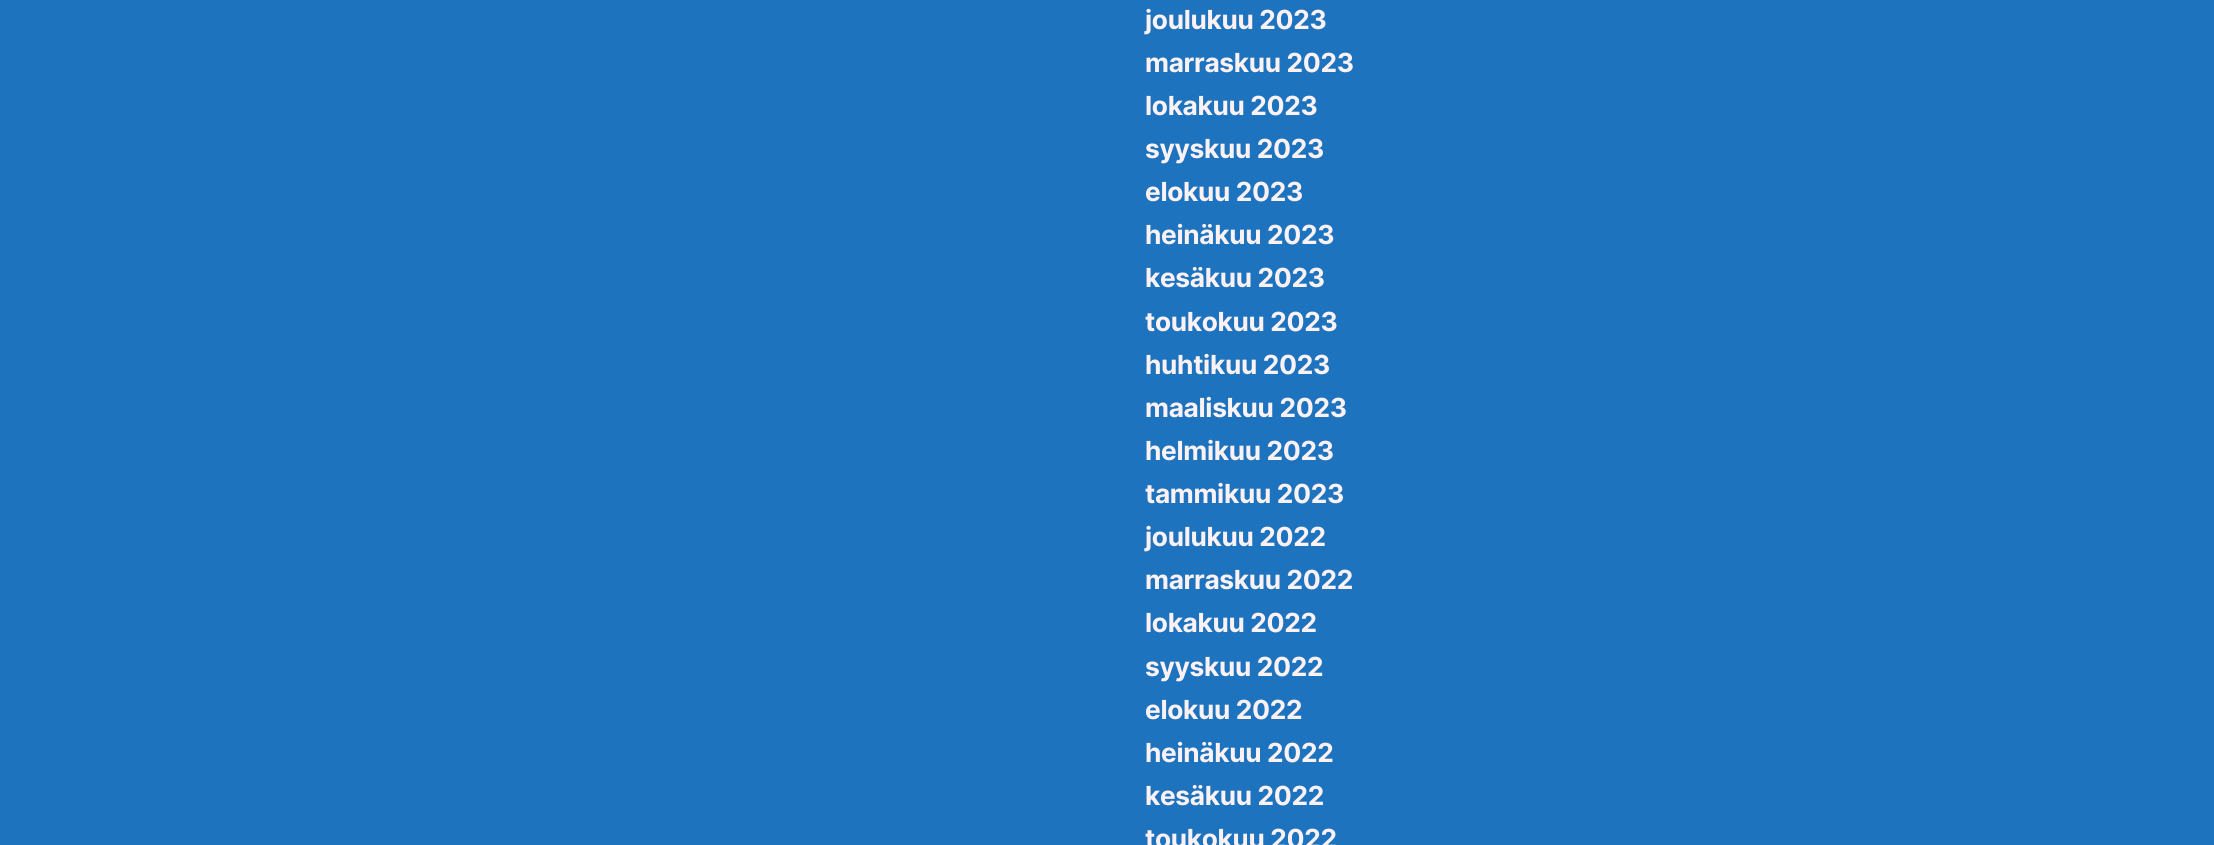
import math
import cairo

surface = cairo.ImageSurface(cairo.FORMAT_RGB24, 2214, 845)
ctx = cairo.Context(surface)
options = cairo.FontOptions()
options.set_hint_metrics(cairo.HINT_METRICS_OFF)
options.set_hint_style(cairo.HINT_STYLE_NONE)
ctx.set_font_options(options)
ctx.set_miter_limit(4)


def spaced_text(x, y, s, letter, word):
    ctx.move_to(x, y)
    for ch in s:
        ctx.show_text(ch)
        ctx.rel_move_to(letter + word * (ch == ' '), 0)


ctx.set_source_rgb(0.118, 0.451, 0.745)
ctx.paint()
ctx.select_font_face("Inter", cairo.FONT_SLANT_NORMAL, cairo.FONT_WEIGHT_BOLD)
ctx.set_font_size(26.25)
ctx.set_source_rgb(0.988, 0.949, 0.957)
spaced_text(1145, 29, "joulukuu 2023", -0.3, 0)
spaced_text(1145, 72, "marraskuu 2023", -0.3, 0)
spaced_text(1145, 115, "lokakuu 2023", -0.3, 0)
spaced_text(1145, 158, "syyskuu 2023", -0.3, 0)
spaced_text(1145, 201, "elokuu 2023", -0.3, 0)
spaced_text(1145, 244, "heinäkuu 2023", -0.3, 0)
spaced_text(1145, 287, "kesäkuu 2023", -0.3, 0)
spaced_text(1145, 331, "toukokuu 2023", -0.3, 0)
spaced_text(1145, 374, "huhtikuu 2023", -0.3, 0)
spaced_text(1145, 417, "maaliskuu 2023", -0.3, 0)
spaced_text(1145, 460, "helmikuu 2023", -0.3, 0)
spaced_text(1145, 503, "tammikuu 2023", -0.3, 0)
spaced_text(1145, 546, "joulukuu 2022", -0.3, 0)
spaced_text(1145, 589, "marraskuu 2022", -0.3, 0)
spaced_text(1145, 632, "lokakuu 2022", -0.3, 0)
spaced_text(1145, 676, "syyskuu 2022", -0.3, 0)
spaced_text(1145, 719, "elokuu 2022", -0.3, 0)
spaced_text(1145, 762, "heinäkuu 2022", -0.3, 0)
spaced_text(1145, 805, "kesäkuu 2022", -0.3, 0)
spaced_text(1145, 848, "toukokuu 2022", -0.3, 0)
surface.write_to_png("page.png")
